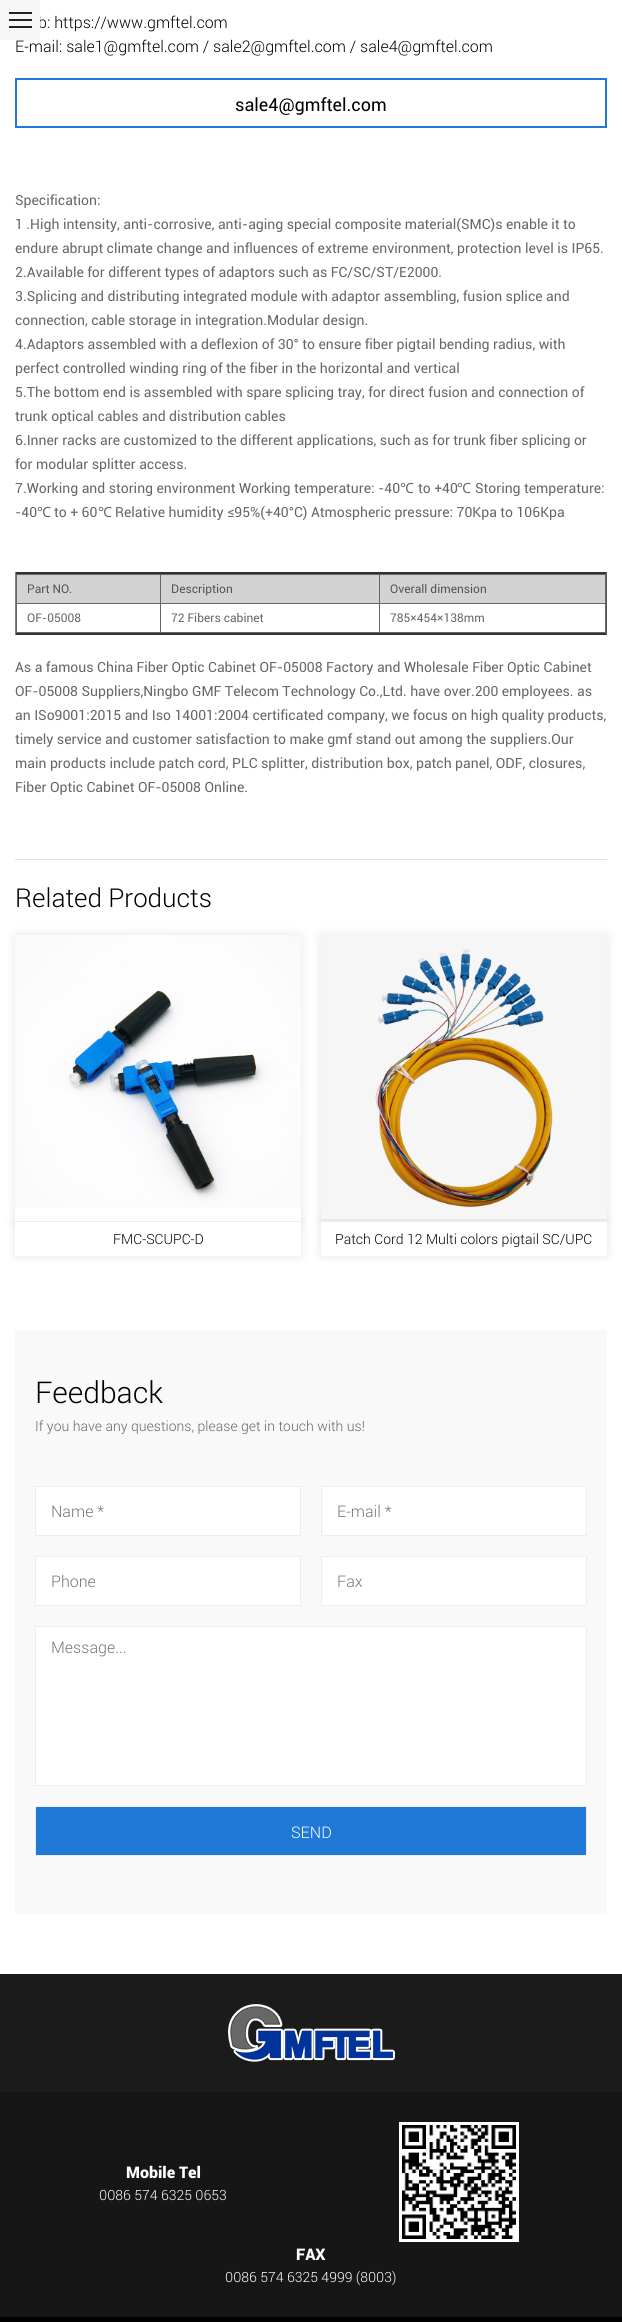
import math
import cairo

surface = cairo.ImageSurface(cairo.FORMAT_RGB24, 622, 2322)
ctx = cairo.Context(surface)
options = cairo.FontOptions()
options.set_hint_metrics(cairo.HINT_METRICS_OFF)
options.set_hint_style(cairo.HINT_STYLE_NONE)
ctx.set_font_options(options)
ctx.set_miter_limit(4)


def round_rect(x, y, w, h, r):
    ctx.new_sub_path()
    for i, (u, v) in enumerate([(x + w - r, y + h - r), (x + r, y + h - r), (x + r, y + r), (x + w - r, y + r)]):
        ctx.arc(u, v, r, i * math.pi / 2, (i + 1) * math.pi / 2)
    ctx.close_path()


def shadow(x, y, w, h, r, blur, alpha):
    ctx.push_group_with_content(cairo.CONTENT_ALPHA)
    ctx.set_operator(cairo.OPERATOR_SOURCE)
    for i in range(15, -16, -2):
        e = blur * i / 6
        if min(w, h) + 2 * e > 0:
            ctx.set_source_rgba(0, 0, 0, alpha * math.erfc((i - 1) / 8.5) / 2)
            round_rect(x - e, y - e, w + 2 * e, h + 2 * e, max(0, min(r + e + blur * .6, min(w, h) / 2 + e)))
            ctx.fill()
    ctx.mask(ctx.pop_group())


def picture(path, x, y, w, h):
    ctx.save()
    ctx.set_source_surface(cairo.ImageSurface.create_from_png(path), x, y)
    ctx.rectangle(x, y, w, h)
    ctx.fill()
    ctx.restore()


ctx.set_source_rgb(1, 1, 1)
ctx.paint()
ctx.select_font_face("Roboto Light")
ctx.set_font_size(16)
ctx.set_source_rgb(0, 0, 0)
ctx.move_to(38, 28)
ctx.show_text("b: https://www.gmftel.com")
ctx.move_to(15, 52)
ctx.show_text("E-mail: sale1@gmftel.com / sale2@gmftel.com / sale4@gmftel.com")
ctx.set_source_rgb(0.961, 0.961, 0.961)
ctx.rectangle(0, 0, 40, 40)
ctx.fill()
ctx.set_source_rgb(0.133, 0.133, 0.133)
ctx.rectangle(9, 12, 23, 2)
ctx.fill()
ctx.rectangle(9, 19, 23, 2)
ctx.fill()
ctx.rectangle(9, 26, 23, 2)
ctx.fill()
ctx.rectangle(16, 79, 590, 48)
ctx.set_source_rgb(0.125, 0.475, 0.843)
ctx.stroke()
ctx.select_font_face("Roboto")
ctx.set_font_size(18)
ctx.set_source_rgb(0, 0, 0)
ctx.move_to(235, 111)
ctx.show_text("sale4@gmftel.com")
ctx.set_font_size(14)
ctx.set_source_rgb(0.4, 0.4, 0.4)
ctx.move_to(15, 205)
ctx.show_text("Specification:")
ctx.move_to(15, 229)
ctx.show_text("1 .High intensity, anti-corrosive, anti-aging special composite material(SMC)s enable it to")
ctx.move_to(15, 253)
ctx.show_text("endure abrupt climate change and influences of extreme environment, protection level is IP65.")
ctx.move_to(15, 277)
ctx.show_text("2.Available for different types of adaptors such as FC/SC/ST/E2000.")
ctx.move_to(15, 301)
ctx.show_text("3.Splicing and distributing integrated module with adaptor assembling, fusion splice and")
ctx.move_to(15, 325)
ctx.show_text("connection, cable storage in integration.Modular design.")
ctx.move_to(15, 349)
ctx.show_text("4.Adaptors assembled with a deflexion of 30° to ensure fiber pigtail bending radius, with")
ctx.move_to(15, 373)
ctx.show_text("perfect controlled winding ring of the fiber in the horizontal and vertical")
ctx.move_to(15, 397)
ctx.show_text("5.The bottom end is assembled with spare splicing tray, for direct fusion and connection of")
ctx.move_to(15, 421)
ctx.show_text("trunk optical cables and distribution cables")
ctx.move_to(15, 445)
ctx.show_text("6.Inner racks are customized to the different applications, such as for trunk fiber splicing or")
ctx.move_to(15, 469)
ctx.show_text("for modular splitter access.")
ctx.move_to(15, 493)
ctx.show_text("7.Working and storing environment Working temperature: -40")
ctx.select_font_face("Noto Sans")
ctx.move_to(400, 493)
ctx.show_text("℃")
ctx.select_font_face("Roboto")
ctx.move_to(418, 493)
ctx.show_text("to +40")
ctx.select_font_face("Noto Sans")
ctx.move_to(457, 493)
ctx.show_text("℃")
ctx.select_font_face("Roboto")
ctx.move_to(475, 493)
ctx.show_text("Storing temperature:")
ctx.move_to(15, 517)
ctx.show_text("-40")
ctx.select_font_face("Noto Sans")
ctx.move_to(37, 517)
ctx.show_text("℃")
ctx.select_font_face("Roboto")
ctx.move_to(54, 517)
ctx.show_text("to + 60")
ctx.select_font_face("Noto Sans")
ctx.move_to(98, 517)
ctx.show_text("℃")
ctx.select_font_face("Roboto")
ctx.move_to(115, 517)
ctx.show_text("Relative humidity ≤95%(+40°C) Atmospheric pressure: 70Kpa to 106Kpa")
ctx.set_source_rgb(0.2, 0.2, 0.2)
ctx.new_path()
ctx.move_to(15, 572)
ctx.line_to(607, 572)
ctx.line_to(606, 574)
ctx.line_to(16, 574)
ctx.close_path()
ctx.fill()
ctx.set_source_rgb(0.333, 0.333, 0.333)
ctx.new_path()
ctx.move_to(607, 572)
ctx.line_to(607, 635)
ctx.line_to(606, 633)
ctx.line_to(606, 574)
ctx.close_path()
ctx.fill()
ctx.set_source_rgb(0.2, 0.2, 0.2)
ctx.new_path()
ctx.move_to(607, 635)
ctx.line_to(15, 635)
ctx.line_to(16, 633)
ctx.line_to(606, 633)
ctx.close_path()
ctx.fill()
ctx.set_source_rgb(0.502, 0.502, 0.502)
ctx.new_path()
ctx.move_to(15, 635)
ctx.line_to(15, 572)
ctx.line_to(16, 574)
ctx.line_to(16, 633)
ctx.close_path()
ctx.fill()
ctx.set_source_rgb(0.827, 0.827, 0.827)
ctx.rectangle(17, 575, 588, 28)
ctx.fill()
ctx.set_source_rgb(0.4, 0.4, 0.4)
ctx.rectangle(379, 574, 227, 1)
ctx.fill()
ctx.rectangle(379, 603, 227, 1)
ctx.fill()
ctx.rectangle(605, 603, 1, 30)
ctx.fill()
ctx.rectangle(379, 632, 227, 1)
ctx.fill()
ctx.rectangle(379, 603, 1, 30)
ctx.fill()
ctx.rectangle(160, 603, 220, 1)
ctx.fill()
ctx.rectangle(379, 574, 1, 30)
ctx.fill()
ctx.rectangle(160, 574, 220, 1)
ctx.fill()
ctx.rectangle(160, 632, 220, 1)
ctx.fill()
ctx.rectangle(160, 603, 1, 30)
ctx.fill()
ctx.rectangle(16, 603, 145, 1)
ctx.fill()
ctx.rectangle(160, 574, 1, 30)
ctx.fill()
ctx.rectangle(16, 574, 145, 1)
ctx.fill()
ctx.rectangle(16, 632, 145, 1)
ctx.fill()
ctx.rectangle(16, 603, 1, 30)
ctx.fill()
ctx.rectangle(16, 574, 1, 30)
ctx.fill()
ctx.set_font_size(12)
ctx.set_source_rgb(0.329, 0.329, 0.329)
ctx.move_to(27, 593)
ctx.show_text("Part NO.")
ctx.move_to(171, 593)
ctx.show_text("Description")
ctx.set_source_rgb(0.4, 0.4, 0.4)
ctx.rectangle(605, 574, 1, 30)
ctx.fill()
ctx.set_source_rgb(0.329, 0.329, 0.329)
ctx.move_to(390, 593)
ctx.show_text("Overall dimension")
ctx.set_source_rgb(0.4, 0.4, 0.4)
ctx.move_to(27, 622)
ctx.show_text("OF-05008")
ctx.move_to(171, 622)
ctx.show_text("72 Fibers cabinet")
ctx.move_to(390, 622)
ctx.show_text("785×454×138mm")
ctx.set_font_size(14)
ctx.move_to(15, 672)
ctx.show_text("As a famous China Fiber Optic Cabinet OF-05008 Factory and Wholesale Fiber Optic Cabinet")
ctx.move_to(15, 696)
ctx.show_text("OF-05008 Suppliers,Ningbo GMF Telecom Technology Co.,Ltd. have over.200 employees. as")
ctx.move_to(15, 720)
ctx.show_text("an ISo9001:2015 and Iso 14001:2004 certificated company, we focus on high quality products,")
ctx.move_to(15, 744)
ctx.show_text("timely service and customer satisfaction to make gmf stand out among the suppliers.Our")
ctx.move_to(15, 768)
ctx.show_text("main products include patch cord, PLC splitter, distribution box, patch panel, ODF, closures,")
ctx.move_to(15, 792)
ctx.show_text("Fiber Optic Cabinet OF-05008 Online.")
ctx.set_source_rgb(0.89, 0.89, 0.89)
ctx.rectangle(15, 859, 592, 1)
ctx.fill()
ctx.select_font_face("Roboto Light")
ctx.set_font_size(26)
ctx.set_source_rgb(0, 0, 0)
ctx.move_to(15, 907)
ctx.show_text("Related Products")
ctx.set_source_rgb(0, 0, 0)
shadow(15, 935, 286, 286, 0, 5, 0.1)
shadow(15, 1221, 286, 35, 0, 5, 0.1)
picture("img1.png", 15, 935, 286, 286)
ctx.set_source_rgb(1, 1, 1)
ctx.rectangle(15, 1222, 286, 34)
ctx.fill()
ctx.set_source_rgb(0.933, 0.933, 0.933)
ctx.rectangle(15, 1221, 286, 1)
ctx.fill()
ctx.set_font_size(14)
ctx.set_source_rgb(0, 0, 0)
ctx.move_to(113, 1244)
ctx.show_text("FMC-SCUPC-D")
ctx.set_source_rgb(0, 0, 0)
shadow(321, 935, 286, 286, 0, 5, 0.1)
shadow(321, 1221, 286, 35, 0, 5, 0.1)
picture("img2.png", 321, 935, 286, 284)
ctx.set_source_rgb(1, 1, 1)
ctx.rectangle(321, 1222, 286, 34)
ctx.fill()
ctx.set_source_rgb(0.933, 0.933, 0.933)
ctx.rectangle(321, 1221, 286, 1)
ctx.fill()
ctx.set_source_rgb(0, 0, 0)
ctx.move_to(335, 1244)
ctx.show_text("Patch Cord 12 Multi colors pigtail SC/UPC")
ctx.set_source_rgb(0.973, 0.973, 0.973)
ctx.rectangle(15, 1330, 592, 584)
ctx.fill()
ctx.set_font_size(30)
ctx.set_source_rgb(0, 0, 0)
ctx.move_to(35, 1403)
ctx.show_text("Feedback")
ctx.set_font_size(14)
ctx.set_source_rgb(0.4, 0.4, 0.4)
ctx.move_to(35, 1431)
ctx.show_text("If you have any questions, please get in touch with us!")
ctx.set_source_rgb(1, 1, 1)
ctx.rectangle(35.5, 1486.5, 265, 49)
ctx.fill_preserve()
ctx.set_source_rgb(0.933, 0.933, 0.933)
ctx.set_line_width(1)
ctx.stroke()
ctx.set_font_size(16)
ctx.set_source_rgb(0.459, 0.459, 0.459)
ctx.move_to(51, 1517)
ctx.show_text("Name *")
ctx.set_source_rgb(1, 1, 1)
ctx.rectangle(321.5, 1486.5, 265, 49)
ctx.fill_preserve()
ctx.set_source_rgb(0.933, 0.933, 0.933)
ctx.stroke()
ctx.set_source_rgb(0.459, 0.459, 0.459)
ctx.move_to(337, 1517)
ctx.show_text("E-mail *")
ctx.set_source_rgb(1, 1, 1)
ctx.rectangle(35.5, 1556.5, 265, 49)
ctx.fill_preserve()
ctx.set_source_rgb(0.933, 0.933, 0.933)
ctx.stroke()
ctx.set_source_rgb(0.459, 0.459, 0.459)
ctx.move_to(51, 1587)
ctx.show_text("Phone")
ctx.set_source_rgb(1, 1, 1)
ctx.rectangle(321.5, 1556.5, 265, 49)
ctx.fill_preserve()
ctx.set_source_rgb(0.933, 0.933, 0.933)
ctx.stroke()
ctx.set_source_rgb(0.459, 0.459, 0.459)
ctx.move_to(337, 1587)
ctx.show_text("Fax")
ctx.set_source_rgb(1, 1, 1)
ctx.rectangle(35.5, 1626.5, 551, 159)
ctx.fill_preserve()
ctx.set_source_rgb(0.933, 0.933, 0.933)
ctx.stroke()
ctx.set_source_rgb(0.459, 0.459, 0.459)
ctx.move_to(51, 1653)
ctx.show_text("Message...")
ctx.set_source_rgb(0.125, 0.475, 0.843)
ctx.rectangle(35.5, 1806.5, 551, 49)
ctx.fill_preserve()
ctx.set_source_rgb(0.933, 0.933, 0.933)
ctx.stroke()
ctx.set_source_rgb(1, 1, 1)
ctx.move_to(291, 1838)
ctx.show_text("SEND")
ctx.set_source_rgb(0.106, 0.106, 0.106)
ctx.rectangle(0, 1974, 622, 118)
ctx.fill()
picture("img3.png", 228, 2004, 167, 58)
ctx.set_source_rgb(0.086, 0.086, 0.086)
ctx.rectangle(0, 2092, 622, 225)
ctx.fill()
ctx.select_font_face("Roboto Black")
ctx.set_source_rgb(1, 1, 1)
ctx.move_to(126, 2178)
ctx.show_text("Mobile Tel")
ctx.select_font_face("Roboto Light")
ctx.set_font_size(14)
ctx.move_to(99, 2200)
ctx.show_text("0086 574 6325 0653")
ctx.rectangle(400.5, 2123.5, 117, 117)
ctx.set_line_width(3)
ctx.stroke()
picture("img4.png", 402, 2125, 114, 114)
ctx.select_font_face("Roboto Black")
ctx.set_font_size(16)
ctx.move_to(296, 2260)
ctx.show_text("FAX")
ctx.select_font_face("Roboto Light")
ctx.set_font_size(14)
ctx.move_to(225, 2282)
ctx.show_text("0086 574 6325 4999 (8003)")
ctx.set_source_rgb(0, 0, 0)
ctx.rectangle(0, 2317, 622, 5)
ctx.fill()
surface.write_to_png("page.png")
